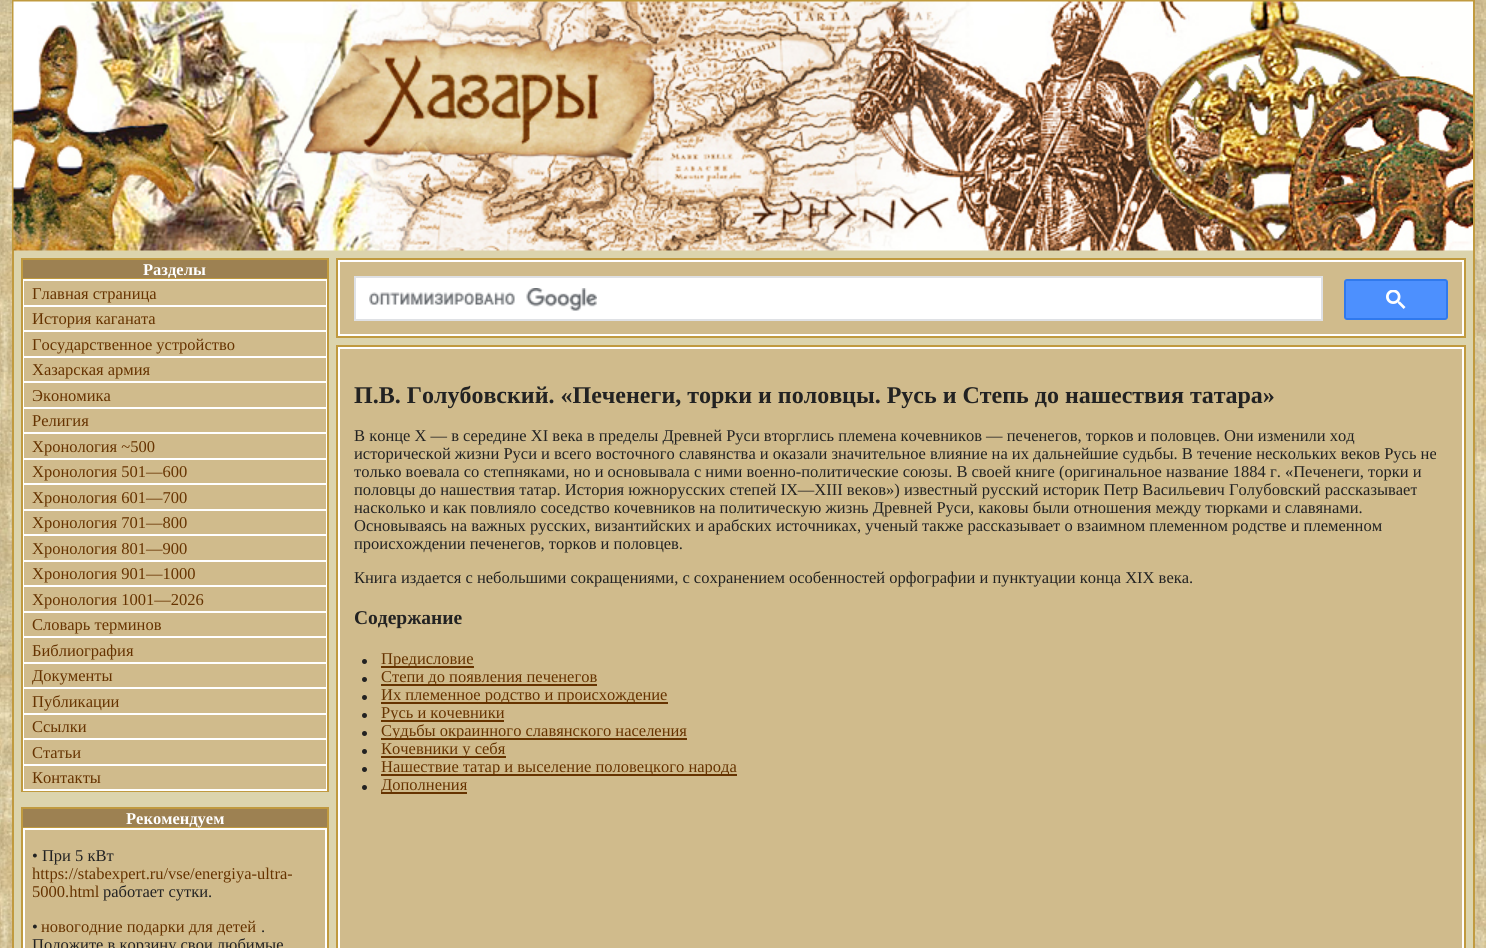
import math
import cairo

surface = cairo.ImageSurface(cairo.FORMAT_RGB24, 1486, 948)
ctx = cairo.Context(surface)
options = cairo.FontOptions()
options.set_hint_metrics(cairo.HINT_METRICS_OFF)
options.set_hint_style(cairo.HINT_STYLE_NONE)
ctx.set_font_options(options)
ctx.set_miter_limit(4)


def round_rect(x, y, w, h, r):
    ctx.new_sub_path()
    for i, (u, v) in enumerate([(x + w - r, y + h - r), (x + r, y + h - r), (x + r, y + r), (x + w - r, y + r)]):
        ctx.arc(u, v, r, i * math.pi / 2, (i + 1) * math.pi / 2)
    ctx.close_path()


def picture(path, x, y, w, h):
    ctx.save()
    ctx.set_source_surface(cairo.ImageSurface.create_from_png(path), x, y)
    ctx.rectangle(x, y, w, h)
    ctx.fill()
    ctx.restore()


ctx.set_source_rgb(1, 1, 1)
ctx.paint()
picture("img1.png", 0, 0, 1486, 948)
ctx.rectangle(13, 1, 1461, 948)
ctx.set_source_rgb(0.753, 0.604, 0.247)
ctx.stroke()
ctx.set_source_rgb(0.863, 0.831, 0.678)
ctx.rectangle(14, 250, 1459, 698)
ctx.fill()
picture("img2.png", 13, 1, 1460, 250)
ctx.rectangle(22, 259, 306, 532)
ctx.set_source_rgb(0.753, 0.604, 0.247)
ctx.stroke()
ctx.set_source_rgb(0.616, 0.506, 0.322)
ctx.rectangle(23, 260, 304, 18)
ctx.fill()
ctx.set_source_rgb(0.753, 0.604, 0.247)
ctx.rectangle(23, 278, 304, 1)
ctx.fill()
ctx.select_font_face("Liberation Serif", cairo.FONT_SLANT_NORMAL, cairo.FONT_WEIGHT_BOLD)
ctx.set_font_size(16.5)
ctx.set_source_rgb(1, 1, 1)
ctx.move_to(143, 275)
ctx.show_text("Разделы")
ctx.rectangle(24, 280, 302, 510)
ctx.stroke()
ctx.set_source_rgb(0.816, 0.733, 0.549)
ctx.rectangle(24, 281, 302, 24)
ctx.fill()
ctx.select_font_face("Liberation Serif")
ctx.set_source_rgb(0.4, 0.2, 0)
ctx.move_to(32, 299)
ctx.show_text("Главная страница")
ctx.set_source_rgb(0.816, 0.733, 0.549)
ctx.rectangle(24, 307, 302, 23)
ctx.fill()
ctx.set_source_rgb(1, 1, 1)
ctx.rectangle(24, 305, 302, 2)
ctx.fill()
ctx.set_source_rgb(0.4, 0.2, 0)
ctx.move_to(32, 324)
ctx.show_text("История каганата")
ctx.set_source_rgb(0.816, 0.733, 0.549)
ctx.rectangle(24, 332, 302, 24)
ctx.fill()
ctx.set_source_rgb(1, 1, 1)
ctx.rectangle(24, 330, 302, 2)
ctx.fill()
ctx.set_source_rgb(0.4, 0.2, 0)
ctx.move_to(32, 350)
ctx.show_text("Государственное устройство")
ctx.set_source_rgb(0.816, 0.733, 0.549)
ctx.rectangle(24, 358, 302, 23)
ctx.fill()
ctx.set_source_rgb(1, 1, 1)
ctx.rectangle(24, 356, 302, 2)
ctx.fill()
ctx.set_source_rgb(0.4, 0.2, 0)
ctx.move_to(32, 375)
ctx.show_text("Хазарская армия")
ctx.set_source_rgb(0.816, 0.733, 0.549)
ctx.rectangle(24, 383, 302, 24)
ctx.fill()
ctx.set_source_rgb(1, 1, 1)
ctx.rectangle(24, 381, 302, 2)
ctx.fill()
ctx.set_source_rgb(0.4, 0.2, 0)
ctx.move_to(32, 401)
ctx.show_text("Экономика")
ctx.set_source_rgb(0.816, 0.733, 0.549)
ctx.rectangle(24, 409, 302, 23)
ctx.fill()
ctx.set_source_rgb(1, 1, 1)
ctx.rectangle(24, 407, 302, 2)
ctx.fill()
ctx.set_source_rgb(0.4, 0.2, 0)
ctx.move_to(32, 426)
ctx.show_text("Религия")
ctx.set_source_rgb(0.816, 0.733, 0.549)
ctx.rectangle(24, 434, 302, 24)
ctx.fill()
ctx.set_source_rgb(1, 1, 1)
ctx.rectangle(24, 432, 302, 2)
ctx.fill()
ctx.set_source_rgb(0.4, 0.2, 0)
ctx.move_to(32, 452)
ctx.show_text("Хронология ~500")
ctx.set_source_rgb(0.816, 0.733, 0.549)
ctx.rectangle(24, 460, 302, 23)
ctx.fill()
ctx.set_source_rgb(1, 1, 1)
ctx.rectangle(24, 458, 302, 2)
ctx.fill()
ctx.set_source_rgb(0.4, 0.2, 0)
ctx.move_to(32, 477)
ctx.show_text("Хронология 501—600")
ctx.set_source_rgb(0.816, 0.733, 0.549)
ctx.rectangle(24, 485, 302, 24)
ctx.fill()
ctx.set_source_rgb(1, 1, 1)
ctx.rectangle(24, 483, 302, 2)
ctx.fill()
ctx.set_source_rgb(0.4, 0.2, 0)
ctx.move_to(32, 503)
ctx.show_text("Хронология 601—700")
ctx.set_source_rgb(0.816, 0.733, 0.549)
ctx.rectangle(24, 511, 302, 23)
ctx.fill()
ctx.set_source_rgb(1, 1, 1)
ctx.rectangle(24, 509, 302, 2)
ctx.fill()
ctx.set_source_rgb(0.4, 0.2, 0)
ctx.move_to(32, 528)
ctx.show_text("Хронология 701—800")
ctx.set_source_rgb(0.816, 0.733, 0.549)
ctx.rectangle(24, 536, 302, 24)
ctx.fill()
ctx.set_source_rgb(1, 1, 1)
ctx.rectangle(24, 534, 302, 2)
ctx.fill()
ctx.set_source_rgb(0.4, 0.2, 0)
ctx.move_to(32, 554)
ctx.show_text("Хронология 801—900")
ctx.set_source_rgb(0.816, 0.733, 0.549)
ctx.rectangle(24, 562, 302, 23)
ctx.fill()
ctx.set_source_rgb(1, 1, 1)
ctx.rectangle(24, 560, 302, 2)
ctx.fill()
ctx.set_source_rgb(0.4, 0.2, 0)
ctx.move_to(32, 579)
ctx.show_text("Хронология 901—1000")
ctx.set_source_rgb(0.816, 0.733, 0.549)
ctx.rectangle(24, 587, 302, 24)
ctx.fill()
ctx.set_source_rgb(1, 1, 1)
ctx.rectangle(24, 585, 302, 2)
ctx.fill()
ctx.set_source_rgb(0.4, 0.2, 0)
ctx.move_to(32, 605)
ctx.show_text("Хронология 1001—2026")
ctx.set_source_rgb(0.816, 0.733, 0.549)
ctx.rectangle(24, 613, 302, 23)
ctx.fill()
ctx.set_source_rgb(1, 1, 1)
ctx.rectangle(24, 611, 302, 2)
ctx.fill()
ctx.set_source_rgb(0.4, 0.2, 0)
ctx.move_to(32, 630)
ctx.show_text("Словарь терминов")
ctx.set_source_rgb(0.816, 0.733, 0.549)
ctx.rectangle(24, 638, 302, 24)
ctx.fill()
ctx.set_source_rgb(1, 1, 1)
ctx.rectangle(24, 636, 302, 2)
ctx.fill()
ctx.set_source_rgb(0.4, 0.2, 0)
ctx.move_to(32, 656)
ctx.show_text("Библиография")
ctx.set_source_rgb(0.816, 0.733, 0.549)
ctx.rectangle(24, 664, 302, 23)
ctx.fill()
ctx.set_source_rgb(1, 1, 1)
ctx.rectangle(24, 662, 302, 2)
ctx.fill()
ctx.set_source_rgb(0.4, 0.2, 0)
ctx.move_to(32, 681)
ctx.show_text("Документы")
ctx.set_source_rgb(0.816, 0.733, 0.549)
ctx.rectangle(24, 689, 302, 24)
ctx.fill()
ctx.set_source_rgb(1, 1, 1)
ctx.rectangle(24, 687, 302, 2)
ctx.fill()
ctx.set_source_rgb(0.4, 0.2, 0)
ctx.move_to(32, 707)
ctx.show_text("Публикации")
ctx.set_source_rgb(0.816, 0.733, 0.549)
ctx.rectangle(24, 715, 302, 23)
ctx.fill()
ctx.set_source_rgb(1, 1, 1)
ctx.rectangle(24, 713, 302, 2)
ctx.fill()
ctx.set_source_rgb(0.4, 0.2, 0)
ctx.move_to(32, 732)
ctx.show_text("Ссылки")
ctx.set_source_rgb(0.816, 0.733, 0.549)
ctx.rectangle(24, 740, 302, 24)
ctx.fill()
ctx.set_source_rgb(1, 1, 1)
ctx.rectangle(24, 738, 302, 2)
ctx.fill()
ctx.set_source_rgb(0.4, 0.2, 0)
ctx.move_to(32, 758)
ctx.show_text("Статьи")
ctx.set_source_rgb(0.816, 0.733, 0.549)
ctx.rectangle(24, 766, 302, 23)
ctx.fill()
ctx.set_source_rgb(1, 1, 1)
ctx.rectangle(24, 764, 302, 2)
ctx.fill()
ctx.set_source_rgb(0.4, 0.2, 0)
ctx.move_to(32, 783)
ctx.show_text("Контакты")
ctx.set_source_rgb(0.816, 0.733, 0.549)
ctx.rectangle(25, 830, 300, 118)
ctx.fill()
ctx.rectangle(22, 808, 306, 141)
ctx.set_source_rgb(0.753, 0.604, 0.247)
ctx.stroke()
ctx.set_source_rgb(0.616, 0.506, 0.322)
ctx.rectangle(23, 809, 304, 18)
ctx.fill()
ctx.set_source_rgb(0.753, 0.604, 0.247)
ctx.rectangle(23, 827, 304, 1)
ctx.fill()
ctx.select_font_face("Liberation Serif", cairo.FONT_SLANT_NORMAL, cairo.FONT_WEIGHT_BOLD)
ctx.set_source_rgb(1, 1, 1)
ctx.move_to(126, 824)
ctx.show_text("Рекомендуем")
ctx.rectangle(24, 829, 302, 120)
ctx.stroke()
ctx.select_font_face("Liberation Serif")
ctx.set_source_rgb(0.133, 0.133, 0.133)
ctx.move_to(32, 861)
ctx.show_text("• При 5 кВт")
ctx.set_source_rgb(0.4, 0.2, 0)
ctx.move_to(32, 879)
ctx.show_text("https://stabexpert.ru/vse/energiya-ultra-")
ctx.move_to(32, 897)
ctx.show_text("5000.html")
ctx.set_source_rgb(0.133, 0.133, 0.133)
ctx.move_to(103, 897)
ctx.show_text("работает сутки.")
ctx.move_to(32, 932)
ctx.show_text("•")
ctx.set_source_rgb(0.4, 0.2, 0)
ctx.move_to(41, 932)
ctx.show_text("новогодние подарки для детей")
ctx.set_source_rgb(0.133, 0.133, 0.133)
ctx.move_to(261, 932)
ctx.show_text(".")
ctx.move_to(32, 950)
ctx.show_text("Положите в корзину свои любимые")
ctx.set_source_rgb(0.816, 0.733, 0.549)
ctx.rectangle(340, 262, 1122, 72)
ctx.fill()
ctx.rectangle(337, 259, 1128, 78)
ctx.set_source_rgb(0.753, 0.604, 0.247)
ctx.stroke()
ctx.rectangle(339, 261, 1124, 74)
ctx.set_source_rgb(1, 1, 1)
ctx.stroke()
ctx.rectangle(355, 277, 967, 43)
ctx.fill_preserve()
ctx.set_source_rgb(0.875, 0.882, 0.898)
ctx.stroke()
picture("img3.png", 369, 288, 228, 23)
ctx.set_source_rgb(0.302, 0.565, 0.996)
round_rect(1345, 280, 102, 39, 2)
ctx.fill_preserve()
ctx.set_source_rgb(0.188, 0.475, 0.929)
ctx.stroke()
picture("img4.png", 1386, 290, 20, 19)
ctx.set_source_rgb(0.816, 0.733, 0.549)
ctx.rectangle(340, 349, 1122, 599)
ctx.fill()
ctx.rectangle(337, 346, 1128, 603)
ctx.set_source_rgb(0.753, 0.604, 0.247)
ctx.stroke()
ctx.rectangle(339, 348, 1124, 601)
ctx.set_source_rgb(1, 1, 1)
ctx.stroke()
ctx.select_font_face("Liberation Serif", cairo.FONT_SLANT_NORMAL, cairo.FONT_WEIGHT_BOLD)
ctx.set_font_size(24)
ctx.set_source_rgb(0.133, 0.133, 0.133)
ctx.move_to(354, 403)
ctx.show_text("П.В. Голубовский. «Печенеги, торки и половцы. Русь и Степь до нашествия татара»")
ctx.select_font_face("Liberation Serif")
ctx.set_font_size(16.5)
ctx.move_to(354, 441)
ctx.show_text("В конце X — в середине XI века в пределы Древней Руси вторглись племена кочевников — печенегов, торков и половцев. Они изменили ход")
ctx.move_to(354, 459)
ctx.show_text("исторической жизни Руси и всего восточного славянства и оказали значительное влияние на их дальнейшие судьбы. В течение нескольких веков Русь не")
ctx.move_to(354, 477)
ctx.show_text("только воевала со степняками, но и основывала с ними военно-политические союзы. В своей книге (оригинальное название 1884 г. «Печенеги, торки и")
ctx.move_to(354, 495)
ctx.show_text("половцы до нашествия татар. История южнорусских степей IX—XIII веков») известный русский историк Петр Васильевич Голубовский рассказывает")
ctx.move_to(354, 513)
ctx.show_text("насколько и как повлияло соседство кочевников на политическую жизнь Древней Руси, каковы были отношения между тюрками и славянами.")
ctx.move_to(354, 531)
ctx.show_text("Основываясь на важных русских, византийских и арабских источниках, ученый также рассказывает о взаимном племенном родстве и племенном")
ctx.move_to(354, 549)
ctx.show_text("происхождении печенегов, торков и половцев.")
ctx.move_to(354, 583)
ctx.show_text("Книга издается с небольшими сокращениями, с сохранением особенностей орфографии и пунктуации конца XIX века.")
ctx.select_font_face("Liberation Serif", cairo.FONT_SLANT_NORMAL, cairo.FONT_WEIGHT_BOLD)
ctx.set_font_size(19.5)
ctx.move_to(354, 624)
ctx.show_text("Содержание")
ctx.new_path()
ctx.arc(364.5, 661.5, 2.5, 0, 2 * math.pi)
ctx.fill()
ctx.set_source_rgb(0.4, 0.2, 0)
ctx.rectangle(381, 666, 93, 2)
ctx.fill()
ctx.select_font_face("Liberation Serif")
ctx.set_font_size(16.5)
ctx.move_to(381, 664)
ctx.show_text("Предисловие")
ctx.set_source_rgb(0.133, 0.133, 0.133)
ctx.new_path()
ctx.arc(364.5, 679.5, 2.5, 0, 2 * math.pi)
ctx.fill()
ctx.set_source_rgb(0.4, 0.2, 0)
ctx.rectangle(381, 684, 216, 2)
ctx.fill()
ctx.move_to(381, 682)
ctx.show_text("Степи до появления печенегов")
ctx.set_source_rgb(0.133, 0.133, 0.133)
ctx.new_path()
ctx.arc(364.5, 697.5, 2.5, 0, 2 * math.pi)
ctx.fill()
ctx.set_source_rgb(0.4, 0.2, 0)
ctx.rectangle(381, 702, 287, 2)
ctx.fill()
ctx.move_to(381, 700)
ctx.show_text("Их племенное родство и происхождение")
ctx.set_source_rgb(0.133, 0.133, 0.133)
ctx.new_path()
ctx.arc(364.5, 715.5, 2.5, 0, 2 * math.pi)
ctx.fill()
ctx.set_source_rgb(0.4, 0.2, 0)
ctx.rectangle(381, 720, 123, 2)
ctx.fill()
ctx.move_to(381, 718)
ctx.show_text("Русь и кочевники")
ctx.set_source_rgb(0.133, 0.133, 0.133)
ctx.new_path()
ctx.arc(364.5, 733.5, 2.5, 0, 2 * math.pi)
ctx.fill()
ctx.set_source_rgb(0.4, 0.2, 0)
ctx.rectangle(381, 738, 306, 2)
ctx.fill()
ctx.move_to(381, 736)
ctx.show_text("Судьбы окраинного славянского населения")
ctx.set_source_rgb(0.133, 0.133, 0.133)
ctx.new_path()
ctx.arc(364.5, 751.5, 2.5, 0, 2 * math.pi)
ctx.fill()
ctx.set_source_rgb(0.4, 0.2, 0)
ctx.rectangle(381, 756, 125, 2)
ctx.fill()
ctx.move_to(381, 754)
ctx.show_text("Кочевники у себя")
ctx.set_source_rgb(0.133, 0.133, 0.133)
ctx.new_path()
ctx.arc(364.5, 769.5, 2.5, 0, 2 * math.pi)
ctx.fill()
ctx.set_source_rgb(0.4, 0.2, 0)
ctx.rectangle(381, 774, 356, 2)
ctx.fill()
ctx.move_to(381, 772)
ctx.show_text("Нашествие татар и выселение половецкого народа")
ctx.set_source_rgb(0.133, 0.133, 0.133)
ctx.new_path()
ctx.arc(364.5, 787.5, 2.5, 0, 2 * math.pi)
ctx.fill()
ctx.set_source_rgb(0.4, 0.2, 0)
ctx.rectangle(381, 792, 86, 2)
ctx.fill()
ctx.move_to(381, 790)
ctx.show_text("Дополнения")
surface.write_to_png("page.png")
